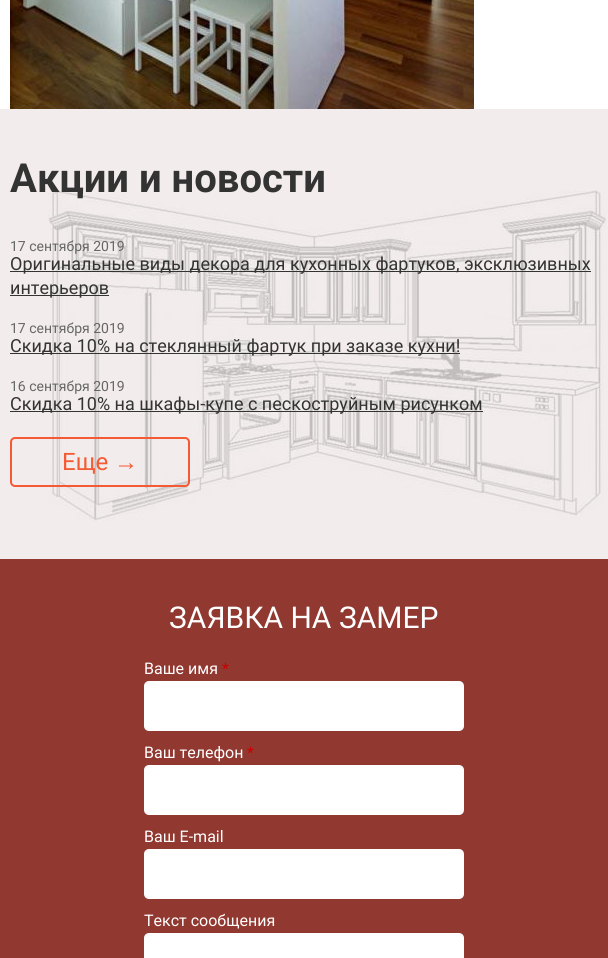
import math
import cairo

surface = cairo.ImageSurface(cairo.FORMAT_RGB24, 608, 958)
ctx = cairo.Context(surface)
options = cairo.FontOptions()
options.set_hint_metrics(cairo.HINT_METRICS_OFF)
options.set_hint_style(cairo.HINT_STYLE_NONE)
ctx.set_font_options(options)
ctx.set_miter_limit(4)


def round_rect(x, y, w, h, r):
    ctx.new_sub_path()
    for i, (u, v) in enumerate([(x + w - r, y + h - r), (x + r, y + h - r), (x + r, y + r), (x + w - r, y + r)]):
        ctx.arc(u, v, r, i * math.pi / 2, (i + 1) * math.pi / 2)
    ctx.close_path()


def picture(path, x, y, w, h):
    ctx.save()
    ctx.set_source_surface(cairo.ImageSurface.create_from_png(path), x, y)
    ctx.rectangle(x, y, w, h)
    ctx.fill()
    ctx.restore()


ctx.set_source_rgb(1, 1, 1)
ctx.paint()
picture("img1.png", 10, 0, 464, 109)
ctx.set_source_rgb(0.949, 0.925, 0.925)
ctx.rectangle(0, 109, 608, 450)
ctx.fill()
picture("img2.png", 48, 190, 558, 331)
ctx.select_font_face("Roboto", cairo.FONT_SLANT_NORMAL, cairo.FONT_WEIGHT_BOLD)
ctx.set_font_size(40)
ctx.set_source_rgb(0.2, 0.2, 0.2)
ctx.move_to(10, 192)
ctx.show_text("Акции и новости")
ctx.select_font_face("Roboto")
ctx.set_font_size(14)
ctx.set_source_rgb(0.4, 0.4, 0.4)
ctx.move_to(10, 251)
ctx.show_text("17 сентября 2019")
ctx.set_source_rgb(0.2, 0.2, 0.2)
ctx.rectangle(10, 271, 581, 1)
ctx.fill()
ctx.set_font_size(18)
ctx.move_to(10, 270)
ctx.show_text("Оригинальные виды декора для кухонных фартуков, эксклюзивных")
ctx.rectangle(10, 295, 99, 1)
ctx.fill()
ctx.move_to(10, 294)
ctx.show_text("интерьеров")
ctx.set_font_size(14)
ctx.set_source_rgb(0.4, 0.4, 0.4)
ctx.move_to(10, 333)
ctx.show_text("17 сентября 2019")
ctx.set_source_rgb(0.2, 0.2, 0.2)
ctx.rectangle(10, 353, 450, 1)
ctx.fill()
ctx.set_font_size(18)
ctx.move_to(10, 352)
ctx.show_text("Скидка 10% на стеклянный фартук при заказе кухни!")
ctx.set_font_size(14)
ctx.set_source_rgb(0.4, 0.4, 0.4)
ctx.move_to(10, 391)
ctx.show_text("16 сентября 2019")
ctx.set_source_rgb(0.2, 0.2, 0.2)
ctx.rectangle(10, 411, 473, 1)
ctx.fill()
ctx.set_font_size(18)
ctx.move_to(10, 410)
ctx.show_text("Скидка 10% на шкафы-купе с пескоструйным рисунком")
round_rect(11, 438, 178, 48, 4)
ctx.set_source_rgb(0.957, 0.357, 0.204)
ctx.stroke()
ctx.set_font_size(24)
ctx.move_to(62, 470)
ctx.show_text("Еще")
ctx.select_font_face("Liberation Serif")
ctx.move_to(114, 470)
ctx.show_text("→")
ctx.set_source_rgb(0.569, 0.22, 0.188)
ctx.rectangle(0, 559, 608, 399)
ctx.fill()
ctx.select_font_face("Roboto")
ctx.set_font_size(30)
ctx.set_source_rgb(1, 1, 1)
ctx.move_to(169, 628)
ctx.show_text("ЗАЯВКА НА ЗАМЕР")
ctx.set_font_size(16)
ctx.move_to(144, 674)
ctx.show_text("Ваше имя")
ctx.set_source_rgb(0.8, 0, 0)
ctx.move_to(222, 674)
ctx.show_text("*")
ctx.set_source_rgb(1, 1, 1)
round_rect(144, 681, 320, 50, 5)
ctx.fill()
ctx.move_to(144, 758)
ctx.show_text("Ваш телефон")
ctx.set_source_rgb(0.8, 0, 0)
ctx.move_to(247, 758)
ctx.show_text("*")
ctx.set_source_rgb(1, 1, 1)
round_rect(144, 765, 320, 50, 5)
ctx.fill()
ctx.move_to(144, 842)
ctx.show_text("Ваш E-mail")
round_rect(144, 849, 320, 50, 5)
ctx.fill()
ctx.move_to(144, 926)
ctx.show_text("Текст сообщения")
round_rect(144, 933, 320, 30, 5)
ctx.fill()
surface.write_to_png("page.png")
